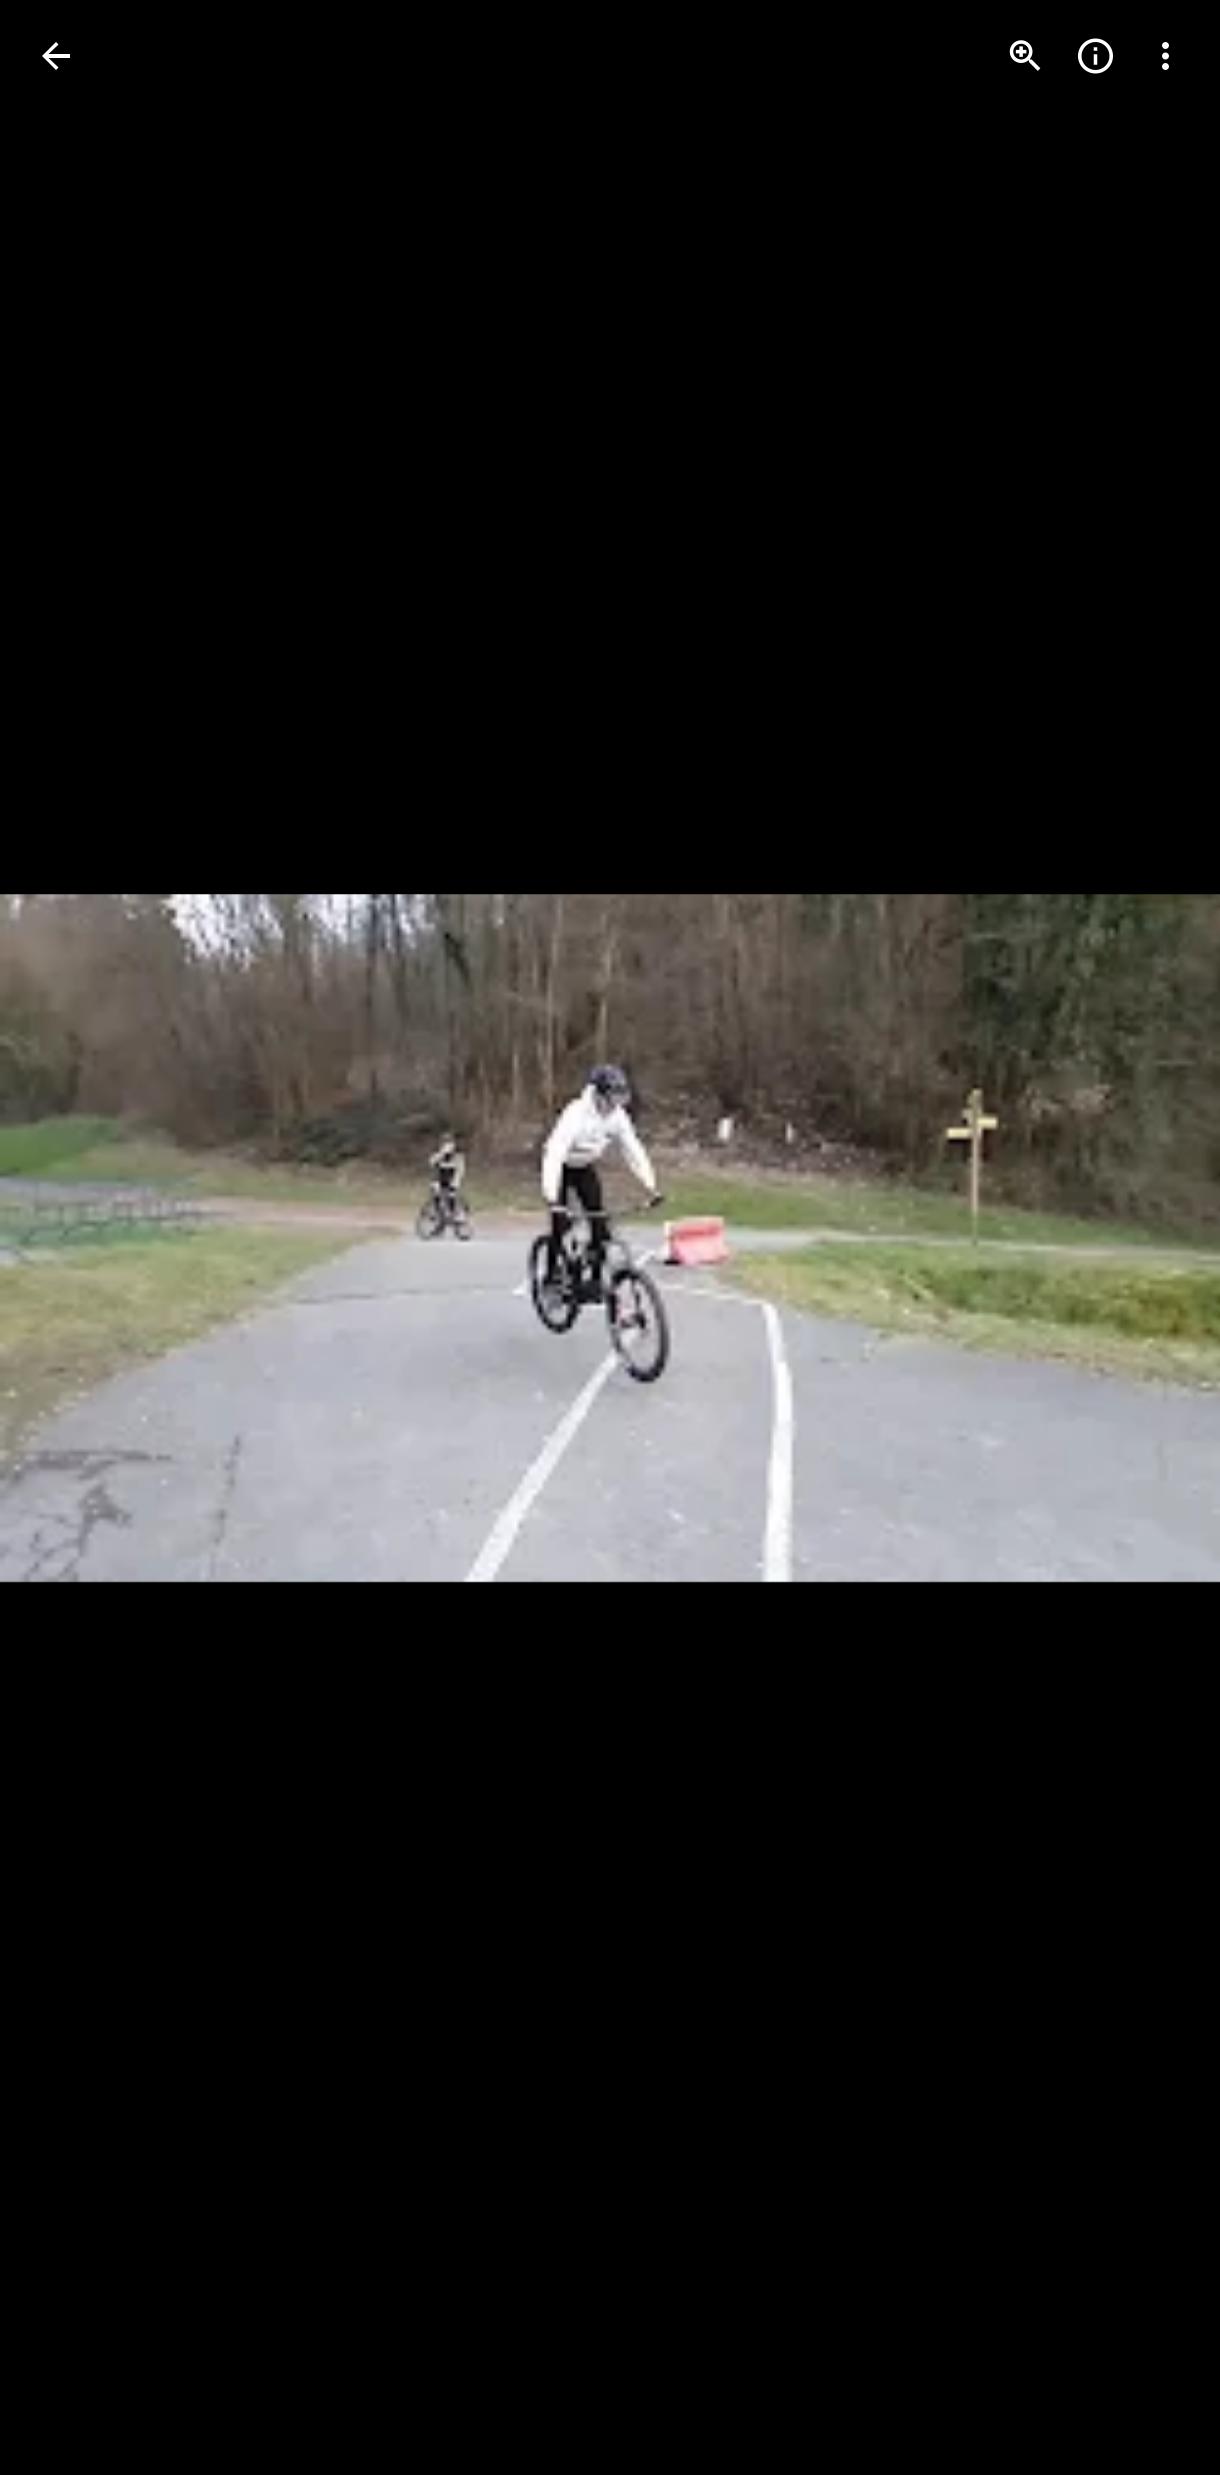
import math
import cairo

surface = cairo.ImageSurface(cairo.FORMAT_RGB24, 1220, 2475)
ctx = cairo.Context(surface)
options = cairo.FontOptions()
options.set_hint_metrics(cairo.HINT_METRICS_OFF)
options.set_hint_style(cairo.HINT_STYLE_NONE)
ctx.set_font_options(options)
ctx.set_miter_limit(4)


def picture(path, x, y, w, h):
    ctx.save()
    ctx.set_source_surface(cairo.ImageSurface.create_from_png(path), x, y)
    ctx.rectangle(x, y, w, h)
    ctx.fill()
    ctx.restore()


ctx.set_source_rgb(0, 0, 0)
ctx.paint()
ctx.set_source_rgb(1, 1, 1)
ctx.new_path()
ctx.move_to(70, 54)
ctx.line_to(48.5, 54)
ctx.line_to(58.5, 44.5)
ctx.line_to(56, 42)
ctx.line_to(42, 56)
ctx.line_to(56, 70)
ctx.line_to(58.5, 67.5)
ctx.line_to(48.5, 58)
ctx.line_to(70, 58)
ctx.close_path()
ctx.fill()
picture("img1.png", 1009, 40, 32, 31)
picture("img2.png", 1078, 38, 35, 36)
picture("img3.png", 1162, 42, 7, 28)
picture("img4.png", 0, 894, 1220, 689)
surface.write_to_png("page.png")
